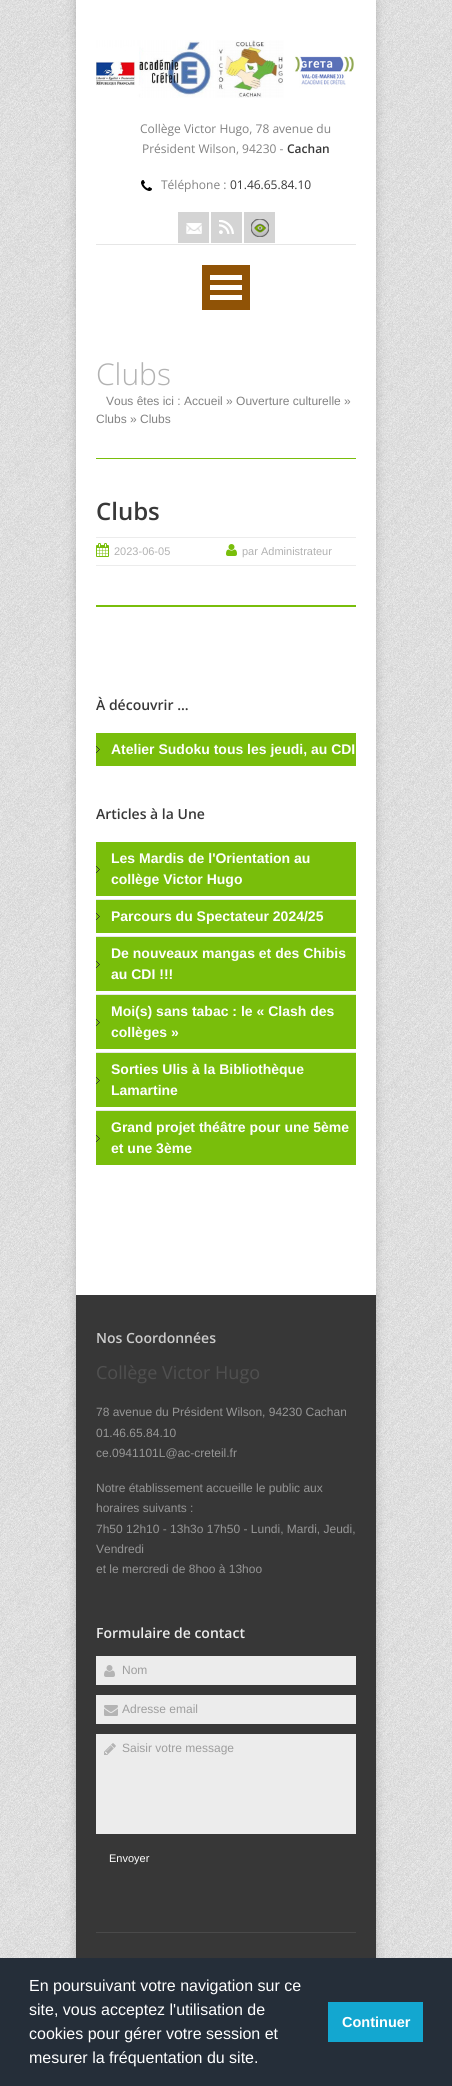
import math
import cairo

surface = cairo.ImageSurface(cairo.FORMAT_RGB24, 452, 2086)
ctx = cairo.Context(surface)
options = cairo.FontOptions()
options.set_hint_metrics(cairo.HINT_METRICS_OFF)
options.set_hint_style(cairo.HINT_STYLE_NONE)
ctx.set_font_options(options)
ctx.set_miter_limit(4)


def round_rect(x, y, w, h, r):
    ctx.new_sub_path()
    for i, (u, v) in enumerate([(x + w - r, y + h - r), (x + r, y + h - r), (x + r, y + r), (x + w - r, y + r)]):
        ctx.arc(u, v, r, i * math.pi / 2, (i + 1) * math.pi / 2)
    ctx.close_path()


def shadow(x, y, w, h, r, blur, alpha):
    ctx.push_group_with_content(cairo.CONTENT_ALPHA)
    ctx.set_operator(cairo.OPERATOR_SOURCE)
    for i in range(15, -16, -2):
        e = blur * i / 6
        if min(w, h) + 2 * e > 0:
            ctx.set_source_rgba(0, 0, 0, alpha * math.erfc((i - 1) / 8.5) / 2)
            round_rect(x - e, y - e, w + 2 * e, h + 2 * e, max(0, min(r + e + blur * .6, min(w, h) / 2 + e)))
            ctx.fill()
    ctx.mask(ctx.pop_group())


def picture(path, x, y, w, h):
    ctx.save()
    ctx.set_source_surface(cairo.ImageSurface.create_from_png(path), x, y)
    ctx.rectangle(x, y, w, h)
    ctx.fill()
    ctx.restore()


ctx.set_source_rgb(1, 1, 1)
ctx.paint()
picture("img1.png", 0, 0, 452, 1958)
ctx.set_source_rgb(0, 0, 0)
shadow(76, 0, 300, 2048, 0, 5, 0.2)
ctx.set_source_rgb(1, 1, 1)
ctx.rectangle(76, 0, 300, 1295)
ctx.fill()
picture("img2.png", 96, 40, 258, 58)
ctx.select_font_face("Open Sans")
ctx.set_font_size(12)
ctx.set_source_rgb(0.51, 0.51, 0.51)
ctx.move_to(140, 133)
ctx.show_text("Collège Victor Hugo, 78 avenue du")
ctx.move_to(142, 153)
ctx.show_text("Président Wilson, 94230 -")
ctx.select_font_face("Open Sans SemiBold")
ctx.set_source_rgb(0.22, 0.22, 0.22)
ctx.move_to(287, 153)
ctx.show_text("Cachan")
picture("img3.png", 141, 180, 11, 11)
ctx.select_font_face("Open Sans")
ctx.set_source_rgb(0.51, 0.51, 0.51)
ctx.move_to(161, 189)
ctx.show_text("Téléphone :")
ctx.set_source_rgb(0.22, 0.22, 0.22)
ctx.move_to(230, 189)
ctx.show_text("01.46.65.84.10")
ctx.set_source_rgb(0.831, 0.831, 0.831)
ctx.rectangle(178, 212, 31, 31)
ctx.fill()
picture("img4.png", 186, 223, 16, 11)
ctx.rectangle(211, 212, 31, 31)
ctx.fill()
picture("img5.png", 219, 220, 15, 14)
ctx.rectangle(244, 212, 31, 31)
ctx.fill()
picture("img6.png", 250, 219, 19, 18)
ctx.set_source_rgb(0.902, 0.902, 0.902)
ctx.rectangle(96, 244, 260, 1)
ctx.fill()
ctx.set_source_rgb(0.565, 0.325, 0.027)
ctx.rectangle(202, 265, 48, 45)
ctx.fill()
ctx.set_source_rgb(1, 1, 1)
ctx.rectangle(210, 295, 32, 5)
ctx.fill()
ctx.rectangle(210, 285, 32, 5)
ctx.fill()
ctx.rectangle(210, 275, 32, 5)
ctx.fill()
ctx.set_source_rgb(0.475, 0.745, 0.043)
ctx.rectangle(96, 458, 260, 1)
ctx.fill()
ctx.select_font_face("Open Sans Light")
ctx.set_font_size(30)
ctx.set_source_rgb(0.698, 0.698, 0.698)
ctx.move_to(96, 385)
ctx.show_text("Clubs")
ctx.select_font_face("Liberation Sans")
ctx.set_font_size(12)
ctx.set_source_rgb(0.51, 0.51, 0.51)
ctx.move_to(106, 405)
ctx.show_text("Vous êtes ici : Accueil » Ouverture culturelle »")
ctx.move_to(96, 423)
ctx.show_text("Clubs » Clubs")
ctx.set_source_rgb(0.475, 0.745, 0.043)
ctx.rectangle(96, 605, 260, 2)
ctx.fill()
ctx.select_font_face("Open Sans SemiBold")
ctx.set_font_size(24)
ctx.set_source_rgb(0.22, 0.22, 0.22)
ctx.move_to(96, 520)
ctx.show_text("Clubs")
ctx.set_source_rgb(0.922, 0.922, 0.922)
ctx.rectangle(96, 537, 260, 1)
ctx.fill()
ctx.rectangle(96, 565, 260, 1)
ctx.fill()
picture("img7.png", 96, 543, 13, 14)
ctx.select_font_face("Liberation Sans")
ctx.set_font_size(11)
ctx.set_source_rgb(0.698, 0.698, 0.698)
ctx.move_to(114, 555)
ctx.show_text("2023-06-05")
picture("img8.png", 226, 544, 11, 12)
ctx.move_to(242, 555)
ctx.show_text("par Administrateur")
ctx.select_font_face("Open Sans SemiBold")
ctx.set_font_size(14)
ctx.set_source_rgb(0.22, 0.22, 0.22)
ctx.move_to(96, 710)
ctx.show_text("À découvrir ...")
ctx.set_source_rgb(0.475, 0.745, 0.043)
ctx.rectangle(96, 733, 260, 33)
ctx.fill()
picture("img9.png", 96, 746, 4, 7)
ctx.select_font_face("Liberation Sans", cairo.FONT_SLANT_NORMAL, cairo.FONT_WEIGHT_BOLD)
ctx.set_source_rgb(1, 1, 1)
ctx.move_to(111, 754)
ctx.show_text("Atelier Sudoku tous les jeudi, au CDI")
ctx.select_font_face("Open Sans SemiBold")
ctx.set_source_rgb(0.22, 0.22, 0.22)
ctx.move_to(96, 819)
ctx.show_text("Articles à la Une")
ctx.set_source_rgb(0.475, 0.745, 0.043)
ctx.rectangle(96, 842, 260, 54)
ctx.fill()
ctx.select_font_face("Liberation Sans", cairo.FONT_SLANT_NORMAL, cairo.FONT_WEIGHT_BOLD)
ctx.set_source_rgb(1, 1, 1)
ctx.move_to(111, 863)
ctx.show_text("Les Mardis de l'Orientation au")
picture("img9.png", 96, 866, 4, 7)
ctx.move_to(111, 884)
ctx.show_text("collège Victor Hugo")
ctx.set_source_rgb(0.475, 0.745, 0.043)
ctx.rectangle(96, 900, 260, 33)
ctx.fill()
ctx.set_source_rgb(0.91, 0.91, 0.91)
ctx.rectangle(96, 899, 260, 1)
ctx.fill()
picture("img9.png", 96, 913, 4, 7)
ctx.set_source_rgb(1, 1, 1)
ctx.move_to(111, 921)
ctx.show_text("Parcours du Spectateur 2024/25")
ctx.set_source_rgb(0.475, 0.745, 0.043)
ctx.rectangle(96, 937, 260, 54)
ctx.fill()
ctx.set_source_rgb(0.91, 0.91, 0.91)
ctx.rectangle(96, 936, 260, 1)
ctx.fill()
ctx.set_source_rgb(1, 1, 1)
ctx.move_to(111, 958)
ctx.show_text("De nouveaux mangas et des Chibis")
picture("img9.png", 96, 961, 4, 7)
ctx.move_to(111, 979)
ctx.show_text("au CDI !!!")
ctx.set_source_rgb(0.475, 0.745, 0.043)
ctx.rectangle(96, 995, 260, 54)
ctx.fill()
ctx.set_source_rgb(0.91, 0.91, 0.91)
ctx.rectangle(96, 994, 260, 1)
ctx.fill()
ctx.set_source_rgb(1, 1, 1)
ctx.move_to(111, 1016)
ctx.show_text("Moi(s) sans tabac : le « Clash des")
picture("img9.png", 96, 1019, 4, 7)
ctx.move_to(111, 1037)
ctx.show_text("collèges »")
ctx.set_source_rgb(0.475, 0.745, 0.043)
ctx.rectangle(96, 1053, 260, 54)
ctx.fill()
ctx.set_source_rgb(0.91, 0.91, 0.91)
ctx.rectangle(96, 1052, 260, 1)
ctx.fill()
ctx.set_source_rgb(1, 1, 1)
ctx.move_to(111, 1074)
ctx.show_text("Sorties Ulis à la Bibliothèque")
picture("img9.png", 96, 1077, 4, 7)
ctx.move_to(111, 1095)
ctx.show_text("Lamartine")
ctx.set_source_rgb(0.475, 0.745, 0.043)
ctx.rectangle(96, 1111, 260, 54)
ctx.fill()
ctx.set_source_rgb(0.91, 0.91, 0.91)
ctx.rectangle(96, 1110, 260, 1)
ctx.fill()
ctx.set_source_rgb(1, 1, 1)
ctx.move_to(111, 1132)
ctx.show_text("Grand projet théâtre pour une 5ème")
picture("img9.png", 96, 1135, 4, 7)
ctx.move_to(111, 1153)
ctx.show_text("et une 3ème")
ctx.set_source_rgb(0.216, 0.216, 0.216)
ctx.rectangle(76, 1295, 300, 663)
ctx.fill()
ctx.select_font_face("Open Sans SemiBold")
ctx.set_source_rgb(0.8, 0.8, 0.8)
ctx.move_to(96, 1343)
ctx.show_text("Nos Coordonnées")
ctx.select_font_face("Open Sans")
ctx.set_font_size(18)
ctx.set_source_rgb(0.314, 0.314, 0.314)
ctx.move_to(96, 1379)
ctx.show_text("Collège Victor Hugo")
ctx.select_font_face("Liberation Sans")
ctx.set_font_size(12)
ctx.set_source_rgb(0.588, 0.588, 0.588)
ctx.move_to(96, 1416)
ctx.show_text("78 avenue du Président Wilson, 94230 Cachan")
ctx.move_to(96, 1437)
ctx.show_text("01.46.65.84.10")
ctx.move_to(96, 1457)
ctx.show_text("ce.0941101L@ac-creteil.fr")
ctx.move_to(96, 1492)
ctx.show_text("Notre établissement accueille le public aux")
ctx.move_to(96, 1512)
ctx.show_text("horaires suivants :")
ctx.move_to(96, 1533)
ctx.show_text("7h50 12h10 - 13h3o 17h50 - Lundi, Mardi, Jeudi,")
ctx.move_to(96, 1553)
ctx.show_text("Vendredi")
ctx.move_to(96, 1573)
ctx.show_text("et le mercredi de 8hoo à 13hoo")
ctx.select_font_face("Open Sans SemiBold")
ctx.set_font_size(14)
ctx.set_source_rgb(0.922, 0.922, 0.922)
ctx.move_to(96, 1638)
ctx.show_text("Formulaire de contact")
ctx.rectangle(96, 1656, 260, 29)
ctx.fill()
picture("img10.png", 104, 1665, 11, 12)
ctx.select_font_face("Liberation Sans")
ctx.set_font_size(12)
ctx.set_source_rgb(0.62, 0.62, 0.62)
ctx.move_to(122, 1674)
ctx.show_text("Nom")
ctx.set_source_rgb(0.922, 0.922, 0.922)
ctx.rectangle(96, 1695, 260, 29)
ctx.fill()
picture("img11.png", 104, 1705, 14, 11)
ctx.set_source_rgb(0.62, 0.62, 0.62)
ctx.move_to(122, 1713)
ctx.show_text("Adresse email")
ctx.set_source_rgb(0.922, 0.922, 0.922)
ctx.rectangle(96, 1734, 260, 100)
ctx.fill()
picture("img12.png", 104, 1743, 12, 12)
ctx.set_source_rgb(0.62, 0.62, 0.62)
ctx.move_to(122, 1752)
ctx.show_text("Saisir votre message")
ctx.set_font_size(11)
ctx.set_source_rgb(1, 1, 1)
ctx.move_to(109, 1862)
ctx.show_text("Envoyer")
ctx.set_source_rgb(0.29, 0.29, 0.29)
ctx.rectangle(96, 1932, 260, 1)
ctx.fill()
ctx.set_source_rgb(0.145, 0.18, 0.224)
ctx.rectangle(0, 1958, 452, 128)
ctx.fill()
ctx.set_font_size(16)
ctx.set_source_rgb(1, 1, 1)
ctx.move_to(29, 1991)
ctx.show_text("En poursuivant votre navigation sur ce")
ctx.move_to(29, 2015)
ctx.show_text("site, vous acceptez l'utilisation de")
ctx.move_to(29, 2039)
ctx.show_text("cookies pour gérer votre session et")
ctx.move_to(29, 2063)
ctx.show_text("mesurer la fréquentation du site.")
ctx.set_source_rgb(0.078, 0.655, 0.816)
ctx.rectangle(328, 2002, 95, 40)
ctx.fill()
ctx.select_font_face("Liberation Sans", cairo.FONT_SLANT_NORMAL, cairo.FONT_WEIGHT_BOLD)
ctx.set_font_size(14.5)
ctx.set_source_rgb(1, 1, 1)
ctx.move_to(342, 2027)
ctx.show_text("Continuer")
surface.write_to_png("page.png")
